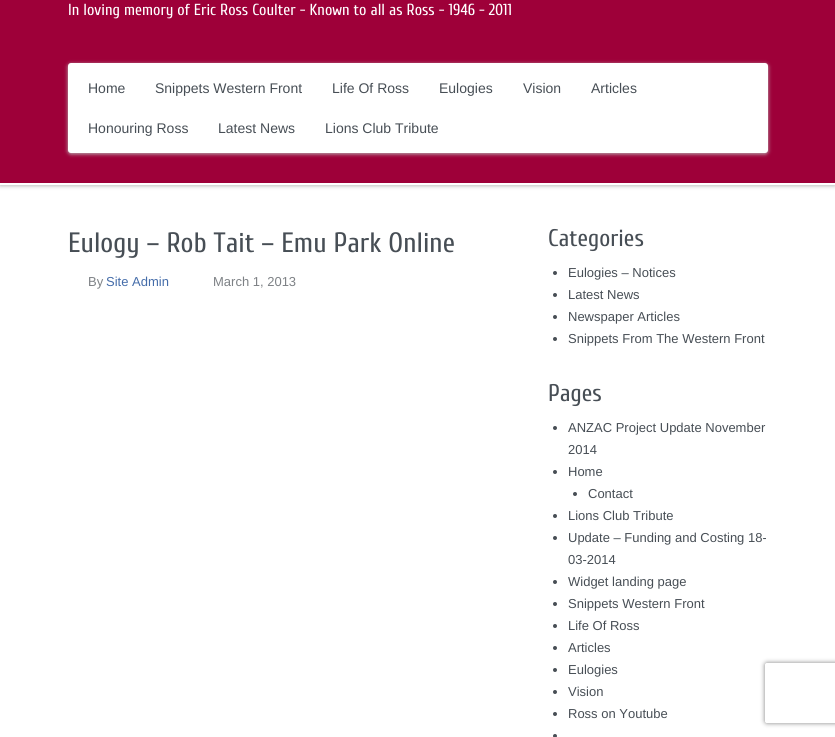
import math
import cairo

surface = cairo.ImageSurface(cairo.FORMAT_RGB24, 835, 737)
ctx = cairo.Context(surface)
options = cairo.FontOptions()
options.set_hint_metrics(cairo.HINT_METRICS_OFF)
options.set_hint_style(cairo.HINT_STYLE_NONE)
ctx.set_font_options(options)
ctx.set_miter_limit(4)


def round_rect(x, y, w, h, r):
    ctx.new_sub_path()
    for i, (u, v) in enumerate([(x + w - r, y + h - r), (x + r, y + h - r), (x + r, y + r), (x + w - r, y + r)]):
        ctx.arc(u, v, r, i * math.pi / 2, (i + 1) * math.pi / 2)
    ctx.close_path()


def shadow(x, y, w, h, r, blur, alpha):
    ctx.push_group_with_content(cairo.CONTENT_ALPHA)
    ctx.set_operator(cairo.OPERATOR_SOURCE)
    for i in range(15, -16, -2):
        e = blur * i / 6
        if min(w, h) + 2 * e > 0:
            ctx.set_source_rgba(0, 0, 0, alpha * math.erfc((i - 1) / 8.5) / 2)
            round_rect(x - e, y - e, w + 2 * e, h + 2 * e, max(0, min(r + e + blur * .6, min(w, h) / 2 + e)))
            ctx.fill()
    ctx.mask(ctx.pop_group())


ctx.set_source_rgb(1, 1, 1)
ctx.paint()
ctx.set_source_rgb(0.729, 0.729, 0.729)
shadow(0, -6, 835, 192, 0, 2, 1)
ctx.set_source_rgb(0.62, 0, 0.224)
ctx.rectangle(0, 0, 835, 183)
ctx.fill()
ctx.set_source_rgb(1, 1, 1)
ctx.rectangle(0, 183, 835, 2)
ctx.fill()
ctx.select_font_face("Cuprum")
ctx.set_font_size(16)
ctx.move_to(68, 15)
ctx.show_text("In loving memory of Eric Ross Coulter - Known to all as Ross - 1946 - 2011")
ctx.set_source_rgb(0.729, 0.729, 0.729)
shadow(68, 64, 700, 90, 3, 2, 1)
ctx.set_source_rgb(1, 1, 1)
round_rect(68, 63, 700, 90, 3)
ctx.fill()
ctx.select_font_face("Liberation Sans")
ctx.set_font_size(14)
ctx.set_source_rgb(0.278, 0.306, 0.333)
ctx.move_to(88, 93)
ctx.show_text("Home")
ctx.move_to(155, 93)
ctx.show_text("Snippets Western Front")
ctx.move_to(332, 93)
ctx.show_text("Life Of Ross")
ctx.move_to(439, 93)
ctx.show_text("Eulogies")
ctx.move_to(523, 93)
ctx.show_text("Vision")
ctx.move_to(591, 93)
ctx.show_text("Articles")
ctx.move_to(88, 133)
ctx.show_text("Honouring Ross")
ctx.move_to(218, 133)
ctx.show_text("Latest News")
ctx.move_to(325, 133)
ctx.show_text("Lions Club Tribute")
ctx.select_font_face("Cuprum")
ctx.set_font_size(28)
ctx.move_to(68, 252)
ctx.show_text("Eulogy – Rob Tait – Emu Park Online")
ctx.select_font_face("Liberation Sans")
ctx.set_font_size(13)
ctx.set_source_rgb(0.49, 0.506, 0.522)
ctx.move_to(88, 286)
ctx.show_text("By")
ctx.set_source_rgb(0.267, 0.424, 0.663)
ctx.move_to(106, 286)
ctx.show_text("Site Admin")
ctx.set_source_rgb(0.49, 0.506, 0.522)
ctx.move_to(213, 286)
ctx.show_text("March 1, 2013")
ctx.select_font_face("Cuprum")
ctx.set_font_size(24)
ctx.set_source_rgb(0.278, 0.306, 0.333)
ctx.move_to(548, 246)
ctx.show_text("Categories")
ctx.new_path()
ctx.arc(555, 273, 2, 0, 2 * math.pi)
ctx.fill()
ctx.select_font_face("Liberation Sans")
ctx.set_font_size(13)
ctx.move_to(568, 277)
ctx.show_text("Eulogies – Notices")
ctx.new_path()
ctx.arc(555, 295, 2, 0, 2 * math.pi)
ctx.fill()
ctx.move_to(568, 299)
ctx.show_text("Latest News")
ctx.new_path()
ctx.arc(555, 317, 2, 0, 2 * math.pi)
ctx.fill()
ctx.move_to(568, 321)
ctx.show_text("Newspaper Articles")
ctx.new_path()
ctx.arc(555, 339, 2, 0, 2 * math.pi)
ctx.fill()
ctx.move_to(568, 343)
ctx.show_text("Snippets From The Western Front")
ctx.select_font_face("Cuprum")
ctx.set_font_size(24)
ctx.move_to(548, 401)
ctx.show_text("Pages")
ctx.new_path()
ctx.arc(555, 428, 2, 0, 2 * math.pi)
ctx.fill()
ctx.select_font_face("Liberation Sans")
ctx.set_font_size(13)
ctx.move_to(568, 432)
ctx.show_text("ANZAC Project Update November")
ctx.move_to(568, 454)
ctx.show_text("2014")
ctx.new_path()
ctx.arc(555, 472, 2, 0, 2 * math.pi)
ctx.fill()
ctx.move_to(568, 476)
ctx.show_text("Home")
ctx.new_path()
ctx.arc(575, 494, 2, 0, 2 * math.pi)
ctx.fill()
ctx.move_to(588, 498)
ctx.show_text("Contact")
ctx.new_path()
ctx.arc(555, 516, 2, 0, 2 * math.pi)
ctx.fill()
ctx.move_to(568, 520)
ctx.show_text("Lions Club Tribute")
ctx.new_path()
ctx.arc(555, 538, 2, 0, 2 * math.pi)
ctx.fill()
ctx.move_to(568, 542)
ctx.show_text("Update – Funding and Costing 18-")
ctx.move_to(568, 564)
ctx.show_text("03-2014")
ctx.new_path()
ctx.arc(555, 582, 2, 0, 2 * math.pi)
ctx.fill()
ctx.move_to(568, 586)
ctx.show_text("Widget landing page")
ctx.new_path()
ctx.arc(555, 604, 2, 0, 2 * math.pi)
ctx.fill()
ctx.move_to(568, 608)
ctx.show_text("Snippets Western Front")
ctx.new_path()
ctx.arc(555, 626, 2, 0, 2 * math.pi)
ctx.fill()
ctx.move_to(568, 630)
ctx.show_text("Life Of Ross")
ctx.new_path()
ctx.arc(555, 648, 2, 0, 2 * math.pi)
ctx.fill()
ctx.move_to(568, 652)
ctx.show_text("Articles")
ctx.new_path()
ctx.arc(555, 670, 2, 0, 2 * math.pi)
ctx.fill()
ctx.move_to(568, 674)
ctx.show_text("Eulogies")
ctx.new_path()
ctx.arc(555, 692, 2, 0, 2 * math.pi)
ctx.fill()
ctx.move_to(568, 696)
ctx.show_text("Vision")
ctx.new_path()
ctx.arc(555, 714, 2, 0, 2 * math.pi)
ctx.fill()
ctx.move_to(568, 718)
ctx.show_text("Ross on Youtube")
ctx.new_path()
ctx.arc(555, 736, 2, 0, 2 * math.pi)
ctx.fill()
ctx.save()
ctx.set_fill_rule(cairo.FILL_RULE_EVEN_ODD)
ctx.new_path()
ctx.move_to(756, 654)
ctx.line_to(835, 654)
ctx.line_to(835, 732)
ctx.line_to(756, 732)
ctx.close_path()
ctx.move_to(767, 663)
ctx.line_to(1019, 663)
ctx.curve_to(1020, 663, 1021, 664, 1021, 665)
ctx.line_to(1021, 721)
ctx.curve_to(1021, 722, 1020, 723, 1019, 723)
ctx.line_to(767, 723)
ctx.curve_to(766, 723, 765, 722, 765, 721)
ctx.line_to(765, 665)
ctx.curve_to(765, 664, 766, 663, 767, 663)
ctx.close_path()
ctx.clip()
ctx.set_source_rgb(0.502, 0.502, 0.502)
shadow(765, 663, 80, 60, 2, 2.5, 1)
ctx.restore()
surface.write_to_png("page.png")
